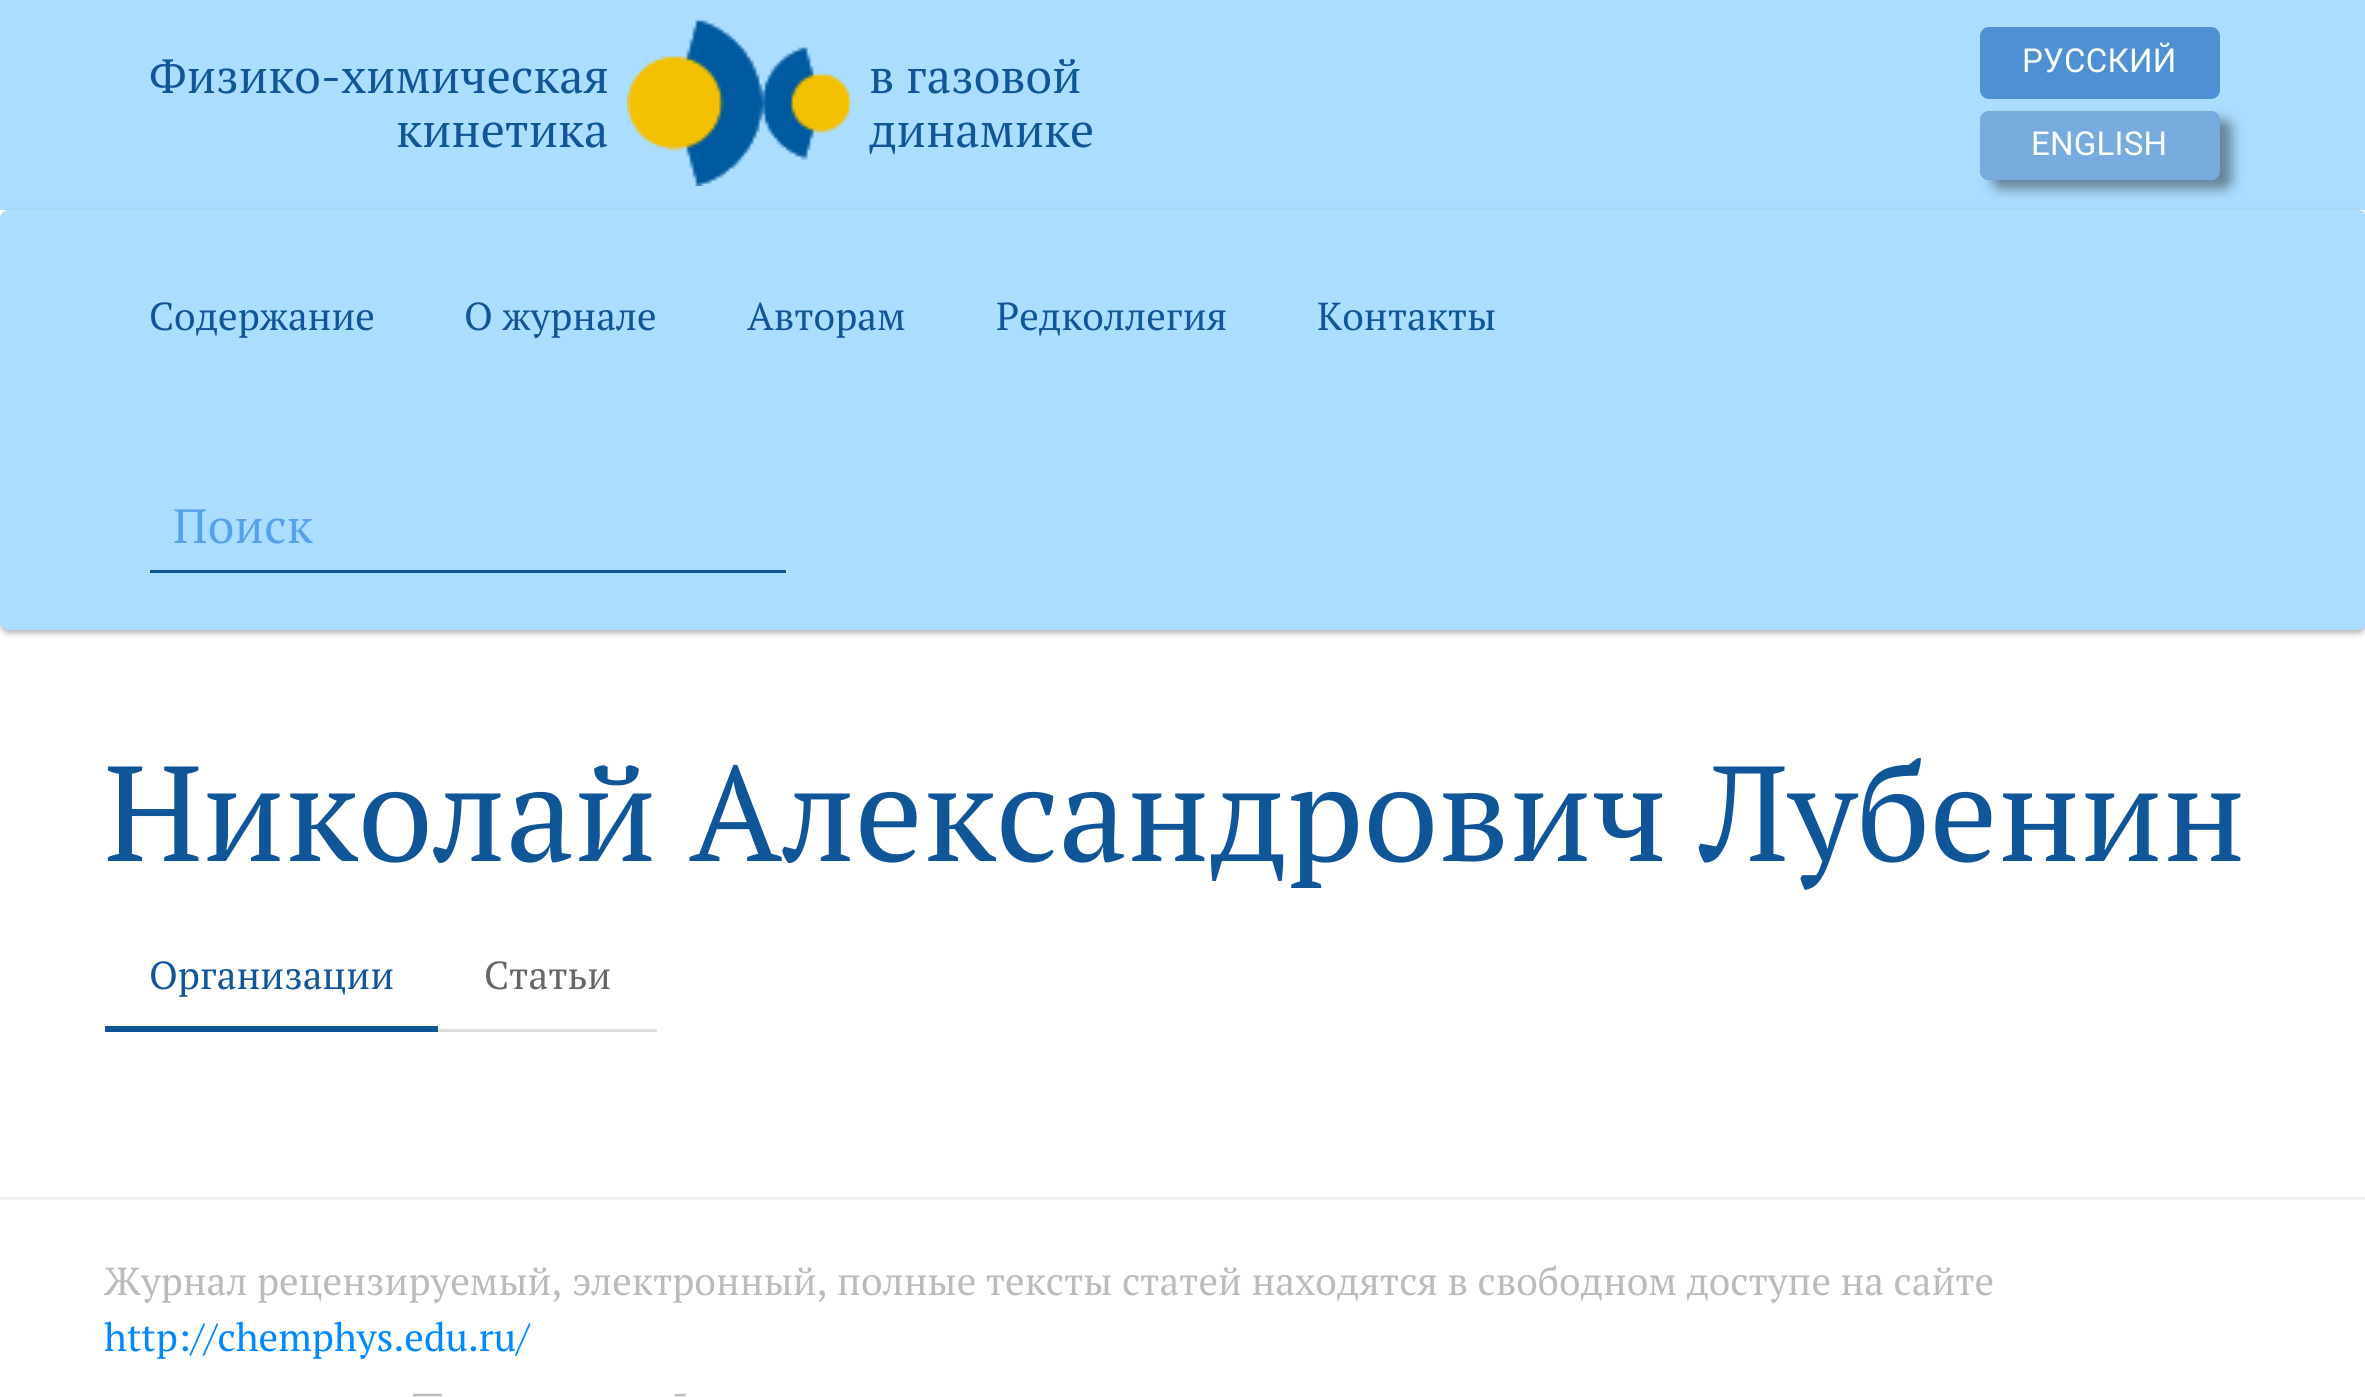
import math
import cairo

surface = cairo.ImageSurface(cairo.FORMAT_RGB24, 2365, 1397)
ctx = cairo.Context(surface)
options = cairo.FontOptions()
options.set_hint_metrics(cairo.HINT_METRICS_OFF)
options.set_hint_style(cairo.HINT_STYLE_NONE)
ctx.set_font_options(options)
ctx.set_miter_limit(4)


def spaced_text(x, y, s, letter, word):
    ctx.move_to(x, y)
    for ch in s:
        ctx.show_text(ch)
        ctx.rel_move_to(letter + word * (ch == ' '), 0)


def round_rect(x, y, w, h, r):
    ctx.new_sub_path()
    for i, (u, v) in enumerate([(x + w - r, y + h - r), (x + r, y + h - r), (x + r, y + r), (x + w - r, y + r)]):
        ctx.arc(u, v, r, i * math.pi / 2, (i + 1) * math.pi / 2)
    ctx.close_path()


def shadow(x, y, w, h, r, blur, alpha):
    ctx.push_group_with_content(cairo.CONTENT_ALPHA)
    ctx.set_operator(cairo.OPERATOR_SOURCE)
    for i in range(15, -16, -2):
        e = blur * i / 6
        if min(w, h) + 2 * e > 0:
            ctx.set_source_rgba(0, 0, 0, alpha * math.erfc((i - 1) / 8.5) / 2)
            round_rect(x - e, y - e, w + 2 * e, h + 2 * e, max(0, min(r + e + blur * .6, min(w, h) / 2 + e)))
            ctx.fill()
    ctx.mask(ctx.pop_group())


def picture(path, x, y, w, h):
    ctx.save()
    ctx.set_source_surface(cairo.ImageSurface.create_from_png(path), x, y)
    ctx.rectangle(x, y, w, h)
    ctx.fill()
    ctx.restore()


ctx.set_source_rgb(1, 1, 1)
ctx.paint()
ctx.set_source_rgb(0.667, 0.867, 1)
ctx.rectangle(0, 0, 2365, 210)
ctx.fill()
ctx.select_font_face("PT Serif")
ctx.set_font_size(48)
ctx.set_source_rgb(0.067, 0.333, 0.6)
ctx.move_to(149, 93)
ctx.show_text("Физико-химическая")
ctx.move_to(396, 147)
ctx.show_text("кинетика")
picture("img1.png", 627, 18, 225, 168)
ctx.move_to(869, 93)
ctx.show_text("в газовой")
ctx.move_to(869, 147)
ctx.show_text("динамике")
ctx.set_source_rgb(0.306, 0.565, 0.827)
round_rect(1980, 27, 240, 72, 9)
ctx.fill()
ctx.select_font_face("Roboto")
ctx.set_font_size(33)
ctx.set_source_rgb(1, 1, 1)
spaced_text(2022, 72, "РУССКИЙ", 0.25, 0)
ctx.set_source_rgb(0, 0, 0)
shadow(1992, 120, 240, 69, 9, 6, 0.4)
ctx.set_source_rgb(0.467, 0.667, 0.867)
round_rect(1980, 111, 240, 69, 9)
ctx.fill()
ctx.save()
round_rect(1980, 111, 240, 69, 9)
ctx.clip()
gradient = cairo.RadialGradient(2102, 147, 0, 2102, 147, 239)
gradient.add_color_stop_rgba(0.8, 0.467, 0.667, 0.867, 1)
gradient.add_color_stop_rgba(0.81, 0.373, 0.608, 0.843, 1)
ctx.set_source(gradient)
ctx.new_path()
ctx.move_to(1980, 114)
ctx.line_to(2220, 114)
ctx.line_to(2220, 171)
ctx.curve_to(2220, 176, 2216, 180, 2211, 180)
ctx.line_to(1989, 180)
ctx.curve_to(1984, 180, 1980, 176, 1980, 171)
ctx.close_path()
ctx.fill()
ctx.restore()
ctx.set_source_rgb(1, 1, 1)
spaced_text(2031, 155, "ENGLISH", 0.25, 0)
ctx.set_source_rgb(0, 0, 0)
shadow(0, 213, 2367, 420, 9, 3, 0.3)
ctx.set_source_rgb(0.667, 0.867, 1)
round_rect(0, 210, 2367, 420, 9)
ctx.fill()
ctx.select_font_face("PT Serif")
ctx.set_font_size(39)
ctx.set_source_rgb(0.067, 0.333, 0.6)
ctx.move_to(149, 330)
ctx.show_text("Содержание")
ctx.move_to(464, 330)
ctx.show_text("О журнале")
ctx.move_to(747, 330)
ctx.show_text("Авторам")
ctx.move_to(996, 330)
ctx.show_text("Редколлегия")
ctx.move_to(1317, 330)
ctx.show_text("Контакты")
ctx.rectangle(150, 570, 636, 3)
ctx.fill()
ctx.save()
ctx.rectangle(174, 492, 588, 66)
ctx.clip()
ctx.set_font_size(48)
ctx.set_source_rgb(0.341, 0.631, 0.925)
spaced_text(173, 543, "Поиск", 0.25, 0)
ctx.restore()
ctx.set_font_size(135)
ctx.move_to(104, 861)
ctx.show_text("Николай Александрович Лубенин")
ctx.rectangle(105, 1026, 333, 6)
ctx.fill()
ctx.set_font_size(39)
ctx.move_to(149, 989)
ctx.show_text("Организации")
ctx.set_source_rgb(0.867, 0.867, 0.867)
ctx.rectangle(438, 1029, 219, 3)
ctx.fill()
ctx.set_source_rgb(0.4, 0.4, 0.4)
ctx.move_to(484, 989)
ctx.show_text("Статьи")
ctx.set_source_rgb(0.933, 0.933, 0.933)
ctx.rectangle(0, 1197, 2365, 3)
ctx.fill()
ctx.set_source_rgb(0.733, 0.733, 0.733)
ctx.move_to(104, 1295)
ctx.show_text("Журнал рецензируемый, электронный, полные тексты статей находятся в свободном доступе на сайте")
ctx.set_source_rgb(0, 0.533, 1)
ctx.move_to(104, 1351)
ctx.show_text("http://chemphys.edu.ru/")
ctx.set_source_rgb(0.733, 0.733, 0.733)
ctx.move_to(410, 1406)
ctx.show_text("—")
ctx.move_to(672, 1406)
ctx.show_text("-")
surface.write_to_png("page.png")
